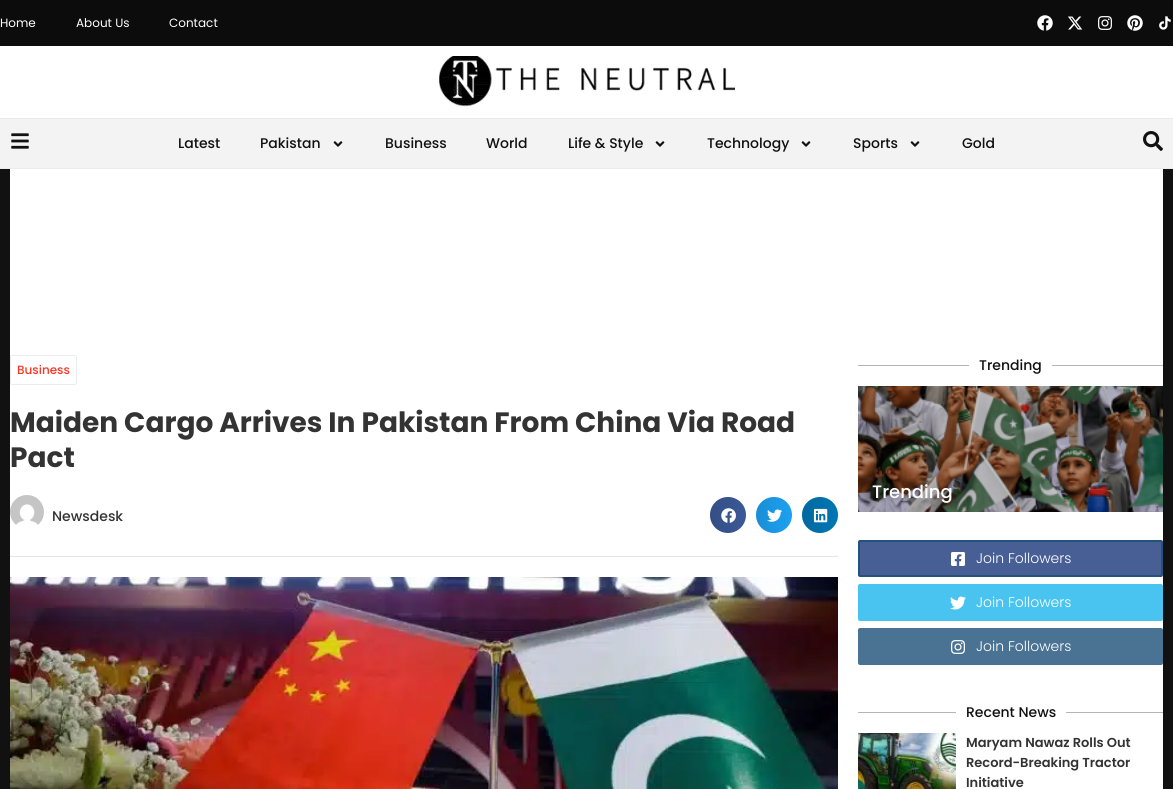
import math
import cairo

surface = cairo.ImageSurface(cairo.FORMAT_RGB24, 1173, 789)
ctx = cairo.Context(surface)
options = cairo.FontOptions()
options.set_hint_metrics(cairo.HINT_METRICS_OFF)
options.set_hint_style(cairo.HINT_STYLE_NONE)
ctx.set_font_options(options)
ctx.set_miter_limit(4)


def round_rect(x, y, w, h, r):
    ctx.new_sub_path()
    for i, (u, v) in enumerate([(x + w - r, y + h - r), (x + r, y + h - r), (x + r, y + r), (x + w - r, y + r)]):
        ctx.arc(u, v, r, i * math.pi / 2, (i + 1) * math.pi / 2)
    ctx.close_path()


def picture(path, x, y, w, h):
    ctx.save()
    ctx.set_source_surface(cairo.ImageSurface.create_from_png(path), x, y)
    ctx.rectangle(x, y, w, h)
    ctx.fill()
    ctx.restore()


ctx.set_source_rgb(0.067, 0.067, 0.067)
ctx.paint()
ctx.set_source_rgb(1, 1, 1)
ctx.rectangle(0, 46, 1173, 72)
ctx.fill()
ctx.set_source_rgb(0.047, 0.047, 0.047)
ctx.rectangle(0, 0, 1173, 46)
ctx.fill()
ctx.select_font_face("Poppins")
ctx.set_font_size(12)
ctx.set_source_rgb(1, 1, 1)
ctx.move_to(0, 27)
ctx.show_text("Home")
ctx.move_to(76, 27)
ctx.show_text("About Us")
ctx.move_to(169, 27)
ctx.show_text("Contact")
picture("img1.png", 1037, 15, 16, 16)
picture("img2.png", 1068, 16, 15, 14)
picture("img3.png", 1098, 16, 14, 14)
picture("img4.png", 1127, 15, 16, 16)
picture("img5.png", 1159, 16, 12, 14)
picture("img6.png", 439, 56, 296, 51)
ctx.set_source_rgb(0.953, 0.953, 0.953)
ctx.rectangle(0, 119, 1173, 49)
ctx.fill()
ctx.set_source_rgb(0.918, 0.918, 0.918)
ctx.rectangle(0, 118, 1173, 1)
ctx.fill()
ctx.rectangle(0, 168, 1173, 1)
ctx.fill()
picture("img7.png", 11, 133, 18, 16)
ctx.select_font_face("Poppins Medium")
ctx.set_font_size(14)
ctx.set_source_rgb(0.067, 0.067, 0.067)
ctx.move_to(178, 148)
ctx.show_text("Latest")
ctx.move_to(260, 148)
ctx.show_text("Pakistan")
picture("img8.png", 333, 141, 10, 6)
ctx.move_to(385, 148)
ctx.show_text("Business")
ctx.move_to(486, 148)
ctx.show_text("World")
ctx.move_to(568, 148)
ctx.show_text("Life & Style")
picture("img8.png", 655, 141, 10, 6)
ctx.move_to(707, 148)
ctx.show_text("Technology")
picture("img8.png", 801, 141, 10, 6)
ctx.move_to(853, 148)
ctx.show_text("Sports")
picture("img8.png", 910, 141, 10, 6)
ctx.move_to(962, 148)
ctx.show_text("Gold")
picture("img9.png", 1143, 131, 20, 20)
ctx.set_source_rgb(1, 1, 1)
ctx.rectangle(10, 169, 1153, 620)
ctx.fill()
round_rect(10.5, 355.5, 66, 29, 1.5)
ctx.set_source_rgb(0.922, 0.922, 0.922)
ctx.set_line_width(1)
ctx.stroke()
ctx.set_font_size(12)
ctx.set_source_rgb(0.984, 0.212, 0.141)
ctx.move_to(17, 374)
ctx.show_text("Business")
ctx.select_font_face("Poppins", cairo.FONT_SLANT_NORMAL, cairo.FONT_WEIGHT_BOLD)
ctx.set_font_size(28)
ctx.set_source_rgb(0.2, 0.2, 0.2)
ctx.move_to(10, 432)
ctx.show_text("Maiden Cargo Arrives In Pakistan From China Via Road")
ctx.move_to(10, 467)
ctx.show_text("Pact")
picture("img10.png", 10, 495, 34, 30)
ctx.select_font_face("Poppins Medium")
ctx.set_font_size(14)
ctx.move_to(52, 521)
ctx.show_text("Newsdesk")
ctx.set_source_rgb(0.231, 0.349, 0.596)
ctx.new_path()
ctx.arc(728, 515, 18, 0, 2 * math.pi)
ctx.fill()
gradient = cairo.LinearGradient(710, 515, 746, 515)
gradient.add_color_stop_rgba(0, 0, 0, 0, 0.12)
gradient.add_color_stop_rgba(1, 0, 0, 0, 0)
ctx.set_source(gradient)
ctx.arc(728, 515, 18, 0, 2 * math.pi)
ctx.fill()
picture("img11.png", 721, 508, 15, 15)
ctx.set_source_rgb(0.114, 0.631, 0.949)
ctx.arc(774, 515, 18, 0, 2 * math.pi)
ctx.fill()
gradient = cairo.LinearGradient(756, 515, 792, 515)
gradient.add_color_stop_rgba(0, 0, 0, 0, 0.12)
gradient.add_color_stop_rgba(1, 0, 0, 0, 0)
ctx.set_source(gradient)
ctx.arc(774, 515, 18, 0, 2 * math.pi)
ctx.fill()
picture("img12.png", 767, 509, 15, 13)
ctx.set_source_rgb(0, 0.467, 0.71)
ctx.arc(820, 515, 18, 0, 2 * math.pi)
ctx.fill()
gradient = cairo.LinearGradient(802, 515, 838, 515)
gradient.add_color_stop_rgba(0, 0, 0, 0, 0.12)
gradient.add_color_stop_rgba(1, 0, 0, 0, 0)
ctx.set_source(gradient)
ctx.arc(820, 515, 18, 0, 2 * math.pi)
ctx.fill()
picture("img13.png", 813, 508, 15, 15)
ctx.set_source_rgb(0.894, 0.894, 0.894)
ctx.rectangle(10, 556, 828, 1)
ctx.fill()
picture("img14.png", 10, 577, 828, 212)
ctx.set_source_rgb(0.71, 0.71, 0.71)
ctx.rectangle(858, 365, 111, 1)
ctx.fill()
ctx.set_source_rgb(0.067, 0.067, 0.067)
ctx.move_to(979, 370)
ctx.show_text("Trending")
ctx.set_source_rgb(0.71, 0.71, 0.71)
ctx.rectangle(1052, 365, 111, 1)
ctx.fill()
picture("img15.png", 858, 386, 305, 126)
ctx.set_font_size(18)
ctx.set_source_rgb(1, 1, 1)
ctx.move_to(872, 498)
ctx.show_text("Trending")
ctx.set_source_rgb(0.282, 0.373, 0.584)
round_rect(859, 541, 303, 35, 1)
ctx.fill_preserve()
ctx.set_source_rgb(0.137, 0.322, 0.486)
ctx.set_line_width(2)
ctx.stroke()
picture("img16.png", 951, 552, 14, 14)
ctx.select_font_face("Poppins Light")
ctx.set_font_size(14)
ctx.set_source_rgb(1, 1, 1)
ctx.move_to(976, 563)
ctx.show_text("Join Followers")
ctx.set_source_rgb(0.286, 0.769, 0.941)
round_rect(859, 585, 303, 35, 1)
ctx.fill_preserve()
ctx.stroke()
picture("img17.png", 950, 596, 16, 14)
ctx.set_source_rgb(1, 1, 1)
ctx.move_to(976, 607)
ctx.show_text("Join Followers")
ctx.set_source_rgb(0.29, 0.451, 0.576)
round_rect(859, 629, 303, 35, 1)
ctx.fill_preserve()
ctx.stroke()
picture("img18.png", 951, 640, 14, 14)
ctx.set_source_rgb(1, 1, 1)
ctx.move_to(976, 651)
ctx.show_text("Join Followers")
ctx.set_source_rgb(0.71, 0.71, 0.71)
ctx.rectangle(858, 712, 98, 1)
ctx.fill()
ctx.select_font_face("Poppins Medium")
ctx.set_source_rgb(0.067, 0.067, 0.067)
ctx.move_to(966, 717)
ctx.show_text("Recent News")
ctx.set_source_rgb(0.71, 0.71, 0.71)
ctx.rectangle(1066, 712, 97, 1)
ctx.fill()
picture("img19.png", 858, 733, 98, 56)
ctx.select_font_face("Poppins SemiBold")
ctx.set_font_size(13)
ctx.set_source_rgb(0.2, 0.2, 0.2)
ctx.move_to(966, 747)
ctx.show_text("Maryam Nawaz Rolls Out")
ctx.move_to(966, 767)
ctx.show_text("Record-Breaking Tractor")
ctx.move_to(966, 787)
ctx.show_text("Initiative")
surface.write_to_png("page.png")
